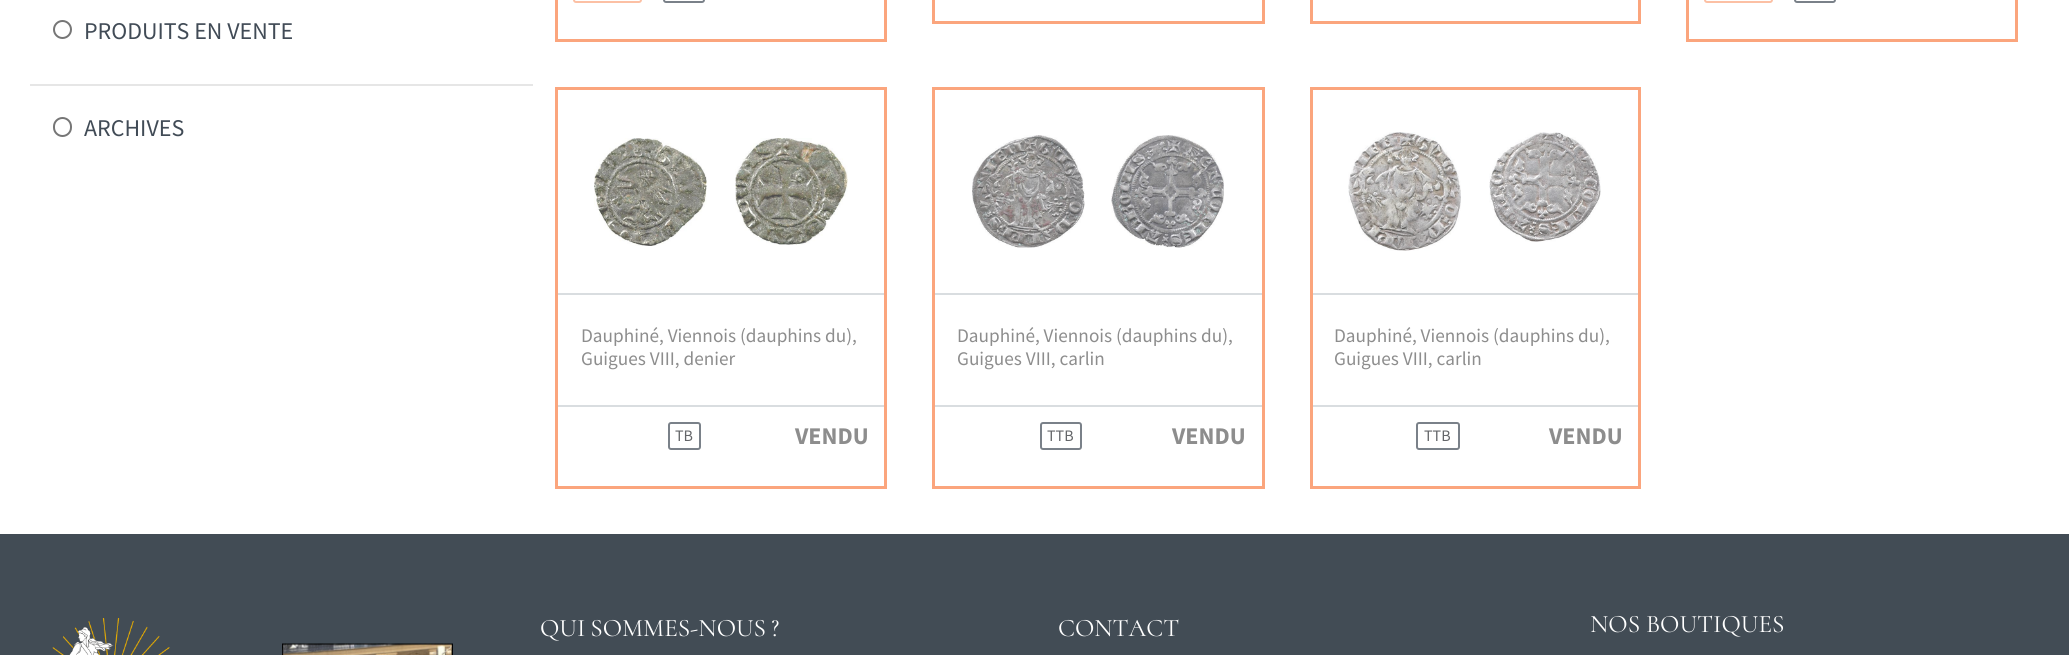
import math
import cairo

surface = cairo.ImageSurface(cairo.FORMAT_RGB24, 2069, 655)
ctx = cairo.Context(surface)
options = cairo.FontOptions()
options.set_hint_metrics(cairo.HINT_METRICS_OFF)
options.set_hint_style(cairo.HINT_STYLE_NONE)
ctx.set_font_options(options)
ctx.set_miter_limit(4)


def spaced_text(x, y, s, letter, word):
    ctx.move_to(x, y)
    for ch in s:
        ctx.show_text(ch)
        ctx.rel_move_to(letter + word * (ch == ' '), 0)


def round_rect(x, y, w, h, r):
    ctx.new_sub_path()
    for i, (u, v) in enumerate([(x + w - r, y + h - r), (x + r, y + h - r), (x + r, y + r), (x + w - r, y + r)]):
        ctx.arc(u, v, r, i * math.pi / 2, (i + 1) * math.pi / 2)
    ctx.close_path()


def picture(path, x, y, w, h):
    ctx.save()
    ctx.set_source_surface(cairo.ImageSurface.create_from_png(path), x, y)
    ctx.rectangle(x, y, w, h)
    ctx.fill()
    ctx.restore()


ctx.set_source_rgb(1, 1, 1)
ctx.paint()
ctx.arc(62.5, 29.5, 8.5, 0, 2 * math.pi)
ctx.set_source_rgb(0.463, 0.463, 0.463)
ctx.stroke()
ctx.select_font_face("Source Sans Pro")
ctx.set_font_size(24)
ctx.set_source_rgb(0.255, 0.294, 0.337)
ctx.move_to(84, 39)
ctx.show_text("PRODUITS EN VENTE")
ctx.set_source_rgb(0.902, 0.902, 0.902)
ctx.rectangle(30, 84, 503, 2)
ctx.fill()
round_rect(54, 118, 17, 18, 8.5)
ctx.set_source_rgb(0.463, 0.463, 0.463)
ctx.stroke()
ctx.set_source_rgb(0.255, 0.294, 0.337)
ctx.move_to(84, 136)
ctx.show_text("ARCHIVES")
ctx.rectangle(556.5, -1.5, 329, 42)
ctx.set_source_rgb(0.984, 0.647, 0.49)
ctx.set_line_width(3)
ctx.stroke()
round_rect(574, -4, 67, 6, 2)
ctx.set_source_rgb(0.988, 0.753, 0.643)
ctx.set_line_width(2)
ctx.stroke()
round_rect(664, -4, 40, 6, 2)
ctx.set_source_rgb(0.478, 0.506, 0.537)
ctx.stroke()
ctx.rectangle(933.5, -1.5, 330, 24)
ctx.set_source_rgb(0.984, 0.647, 0.49)
ctx.set_line_width(3)
ctx.stroke()
ctx.rectangle(1311.5, -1.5, 328, 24)
ctx.stroke()
ctx.rectangle(1687.5, -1.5, 329, 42)
ctx.stroke()
round_rect(1705, -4, 67, 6, 2)
ctx.set_source_rgb(0.988, 0.753, 0.643)
ctx.set_line_width(2)
ctx.stroke()
round_rect(1795, -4, 40, 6, 2)
ctx.set_source_rgb(0.478, 0.506, 0.537)
ctx.stroke()
ctx.rectangle(556.5, 88.5, 329, 399)
ctx.set_source_rgb(0.984, 0.647, 0.49)
ctx.set_line_width(3)
ctx.stroke()
ctx.set_source_rgb(0.851, 0.867, 0.878)
ctx.rectangle(558, 293, 326, 2)
ctx.fill()
picture("img1.png", 594, 138, 113, 108)
picture("img2.png", 735, 138, 113, 107)
ctx.set_font_size(19.25)
ctx.set_source_rgb(0.553, 0.553, 0.553)
ctx.move_to(581, 342)
ctx.show_text("Dauphiné, Viennois (dauphins du),")
ctx.move_to(581, 365)
ctx.show_text("Guigues VIII, denier")
ctx.set_source_rgb(0.851, 0.867, 0.878)
ctx.rectangle(558, 405, 326, 2)
ctx.fill()
round_rect(669, 423, 31, 26, 2)
ctx.set_source_rgb(0.478, 0.506, 0.537)
ctx.set_line_width(2)
ctx.stroke()
ctx.set_font_size(16)
ctx.set_source_rgb(0.392, 0.4, 0.412)
ctx.move_to(675, 441)
ctx.show_text("TB")
ctx.select_font_face("Source Sans Pro", cairo.FONT_SLANT_NORMAL, cairo.FONT_WEIGHT_BOLD)
ctx.set_font_size(24)
ctx.set_source_rgb(0.553, 0.553, 0.553)
ctx.move_to(795, 444)
ctx.show_text("VENDU")
ctx.rectangle(933.5, 88.5, 330, 399)
ctx.set_source_rgb(0.984, 0.647, 0.49)
ctx.set_line_width(3)
ctx.stroke()
ctx.set_source_rgb(0.851, 0.867, 0.878)
ctx.rectangle(935, 293, 327, 2)
ctx.fill()
picture("img3.png", 972, 135, 113, 113)
picture("img4.png", 1111, 135, 113, 113)
ctx.select_font_face("Source Sans Pro")
ctx.set_font_size(19.25)
ctx.set_source_rgb(0.553, 0.553, 0.553)
ctx.move_to(957, 342)
ctx.show_text("Dauphiné, Viennois (dauphins du),")
ctx.move_to(957, 365)
ctx.show_text("Guigues VIII, carlin")
ctx.set_source_rgb(0.851, 0.867, 0.878)
ctx.rectangle(935, 405, 327, 2)
ctx.fill()
round_rect(1041, 423, 40, 26, 2)
ctx.set_source_rgb(0.478, 0.506, 0.537)
ctx.set_line_width(2)
ctx.stroke()
ctx.set_font_size(16)
ctx.set_source_rgb(0.392, 0.4, 0.412)
ctx.move_to(1047, 441)
ctx.show_text("TTB")
ctx.select_font_face("Source Sans Pro", cairo.FONT_SLANT_NORMAL, cairo.FONT_WEIGHT_BOLD)
ctx.set_font_size(24)
ctx.set_source_rgb(0.553, 0.553, 0.553)
ctx.move_to(1172, 444)
ctx.show_text("VENDU")
ctx.rectangle(1311.5, 88.5, 328, 399)
ctx.set_source_rgb(0.984, 0.647, 0.49)
ctx.set_line_width(3)
ctx.stroke()
ctx.set_source_rgb(0.851, 0.867, 0.878)
ctx.rectangle(1313, 293, 325, 2)
ctx.fill()
picture("img5.png", 1348, 132, 113, 119)
picture("img6.png", 1489, 132, 112, 110)
ctx.select_font_face("Source Sans Pro")
ctx.set_font_size(19.25)
ctx.set_source_rgb(0.553, 0.553, 0.553)
ctx.move_to(1334, 342)
ctx.show_text("Dauphiné, Viennois (dauphins du),")
ctx.move_to(1334, 365)
ctx.show_text("Guigues VIII, carlin")
ctx.set_source_rgb(0.851, 0.867, 0.878)
ctx.rectangle(1313, 405, 325, 2)
ctx.fill()
round_rect(1417, 423, 42, 26, 2)
ctx.set_source_rgb(0.478, 0.506, 0.537)
ctx.set_line_width(2)
ctx.stroke()
ctx.set_font_size(16)
ctx.set_source_rgb(0.392, 0.4, 0.412)
ctx.move_to(1424, 441)
ctx.show_text("TTB")
ctx.select_font_face("Source Sans Pro", cairo.FONT_SLANT_NORMAL, cairo.FONT_WEIGHT_BOLD)
ctx.set_font_size(24)
ctx.set_source_rgb(0.553, 0.553, 0.553)
ctx.move_to(1549, 444)
ctx.show_text("VENDU")
ctx.set_source_rgb(0.259, 0.298, 0.333)
ctx.rectangle(0, 534, 2069, 121)
ctx.fill()
picture("img7.png", 52, 618, 118, 37)
picture("img8.png", 282, 643, 171, 12)
ctx.select_font_face("Cormorant")
ctx.set_font_size(25.25)
ctx.set_source_rgb(1, 1, 1)
spaced_text(540, 636, "QUI SOMMES-NOUS ?", 0, -1)
ctx.move_to(1058, 636)
ctx.show_text("CONTACT")
ctx.move_to(1590, 632)
ctx.show_text("NOS BOUTIQUES")
surface.write_to_png("page.png")
